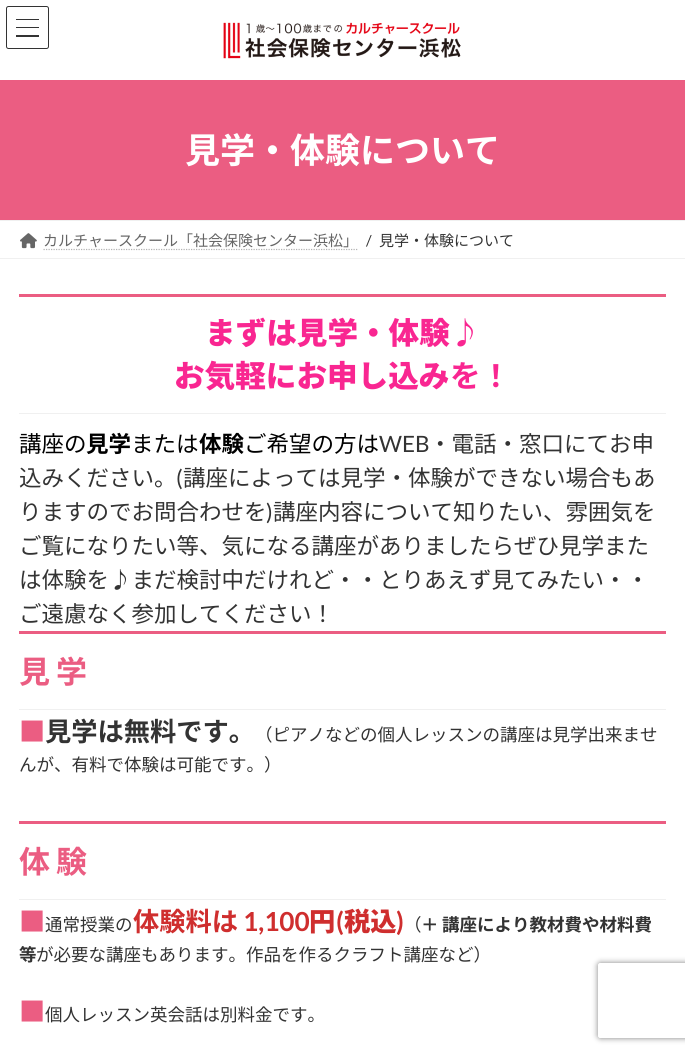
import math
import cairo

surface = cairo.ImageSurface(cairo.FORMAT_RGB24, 685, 1055)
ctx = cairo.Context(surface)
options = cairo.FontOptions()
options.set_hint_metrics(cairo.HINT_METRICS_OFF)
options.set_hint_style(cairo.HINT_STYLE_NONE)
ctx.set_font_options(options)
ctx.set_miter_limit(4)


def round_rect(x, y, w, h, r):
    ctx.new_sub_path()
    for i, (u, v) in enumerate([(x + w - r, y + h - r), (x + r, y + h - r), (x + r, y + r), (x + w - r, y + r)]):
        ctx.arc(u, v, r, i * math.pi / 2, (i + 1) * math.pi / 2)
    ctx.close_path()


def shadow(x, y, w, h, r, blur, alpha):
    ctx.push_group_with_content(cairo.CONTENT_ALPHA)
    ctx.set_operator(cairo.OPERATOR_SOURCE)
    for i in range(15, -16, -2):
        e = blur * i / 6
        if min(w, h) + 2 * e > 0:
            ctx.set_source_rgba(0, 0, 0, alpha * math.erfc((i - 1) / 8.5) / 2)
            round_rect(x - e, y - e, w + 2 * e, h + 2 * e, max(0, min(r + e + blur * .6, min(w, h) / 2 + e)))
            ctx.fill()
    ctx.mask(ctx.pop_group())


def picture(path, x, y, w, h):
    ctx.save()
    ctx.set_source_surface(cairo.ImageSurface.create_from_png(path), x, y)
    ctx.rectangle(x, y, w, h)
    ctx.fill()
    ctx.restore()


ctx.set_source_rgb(1, 1, 1)
ctx.paint()
ctx.set_source_rgb(0.2, 0.2, 0.2)
ctx.rectangle(16, 19, 23, 1)
ctx.fill()
ctx.rectangle(16, 27, 23, 1)
ctx.fill()
ctx.rectangle(16, 35, 23, 2)
ctx.fill()
round_rect(6.5, 6.5, 42, 42, 2)
ctx.set_line_width(1)
ctx.stroke()
picture("img1.png", 223, 22, 238, 37)
ctx.set_source_rgb(0.918, 0.365, 0.51)
ctx.rectangle(0, 80, 685, 140)
ctx.fill()
ctx.select_font_face("Noto Sans JP", cairo.FONT_SLANT_NORMAL, cairo.FONT_WEIGHT_BOLD)
ctx.set_font_size(35)
ctx.set_source_rgb(1, 1, 1)
ctx.move_to(185, 163)
ctx.show_text("見学・体験について")
ctx.set_source_rgb(0.941, 0.941, 0.941)
ctx.rectangle(0, 220, 685, 1)
ctx.fill()
ctx.rectangle(0, 258, 685, 1)
ctx.fill()
picture("img2.png", 20, 233, 17, 16)
ctx.select_font_face("Noto Sans JP")
ctx.set_font_size(15)
ctx.set_source_rgb(0.4, 0.4, 0.4)
ctx.move_to(43, 246)
ctx.show_text("カルチャースクール「社会保険センター浜松」")
ctx.new_path()
ctx.move_to(43.5, 249.5)
ctx.line_to(358.5, 249.5)
ctx.set_source_rgb(0.702, 0.702, 0.702)
ctx.set_line_width(1.2)
ctx.set_dash([1.25, 1.25])
ctx.stroke()
ctx.select_font_face("Lato")
ctx.set_source_rgb(0.2, 0.2, 0.2)
ctx.move_to(366, 246)
ctx.show_text("/")
ctx.select_font_face("Noto Sans JP")
ctx.move_to(379, 246)
ctx.show_text("見学・体験について")
ctx.set_source_rgb(0.918, 0.365, 0.51)
ctx.rectangle(19, 294, 647, 3)
ctx.fill()
ctx.set_source_rgb(0.941, 0.941, 0.941)
ctx.rectangle(19, 413, 647, 1)
ctx.fill()
ctx.select_font_face("Noto Sans JP Black")
ctx.set_font_size(30.6)
ctx.set_source_rgb(0.973, 0.149, 0.569)
ctx.move_to(205, 344)
ctx.show_text("まずは見学・体験♪")
ctx.move_to(174, 387)
ctx.show_text("お気軽にお申し込み")
ctx.select_font_face("Noto Sans JP", cairo.FONT_SLANT_NORMAL, cairo.FONT_WEIGHT_BOLD)
ctx.move_to(450, 387)
ctx.show_text("を！")
ctx.select_font_face("Noto Sans JP")
ctx.set_font_size(22.5)
ctx.set_source_rgb(0, 0, 0)
ctx.move_to(19, 452)
ctx.show_text("講座の")
ctx.select_font_face("Noto Sans JP", cairo.FONT_SLANT_NORMAL, cairo.FONT_WEIGHT_BOLD)
ctx.move_to(86, 452)
ctx.show_text("見学")
ctx.select_font_face("Noto Sans JP")
ctx.move_to(131, 452)
ctx.show_text("または")
ctx.select_font_face("Noto Sans JP", cairo.FONT_SLANT_NORMAL, cairo.FONT_WEIGHT_BOLD)
ctx.move_to(199, 452)
ctx.show_text("体験")
ctx.select_font_face("Noto Sans JP")
ctx.move_to(244, 452)
ctx.show_text("ご希望の方は")
ctx.select_font_face("Lato")
ctx.set_source_rgb(0.2, 0.2, 0.2)
ctx.move_to(379, 452)
ctx.show_text("WEB")
ctx.select_font_face("Noto Sans JP")
ctx.move_to(429, 452)
ctx.show_text("・電話・窓口にてお申")
ctx.move_to(19, 486)
ctx.show_text("込みください。")
ctx.select_font_face("Lato")
ctx.move_to(176, 486)
ctx.show_text("(")
ctx.select_font_face("Noto Sans JP")
ctx.move_to(183, 486)
ctx.show_text("講座によっては見学・体験ができない場合もあ")
ctx.move_to(19, 520)
ctx.show_text("りますのでお問合わせを")
ctx.select_font_face("Lato")
ctx.move_to(266, 520)
ctx.show_text(")")
ctx.select_font_face("Noto Sans JP")
ctx.move_to(273, 520)
ctx.show_text("講座内容について知りたい、雰囲気を")
ctx.move_to(19, 554)
ctx.show_text("ご覧になりたい等、気になる講座がありましたらぜひ見学また")
ctx.move_to(19, 588)
ctx.show_text("は体験を♪まだ検討中だけれど・・とりあえず見てみたい・・")
ctx.move_to(19, 622)
ctx.show_text("ご遠慮なく参加してください！")
ctx.set_source_rgb(0.918, 0.365, 0.51)
ctx.rectangle(19, 631, 647, 3)
ctx.fill()
ctx.set_source_rgb(0.941, 0.941, 0.941)
ctx.rectangle(19, 709, 647, 1)
ctx.fill()
ctx.select_font_face("Noto Sans JP", cairo.FONT_SLANT_NORMAL, cairo.FONT_WEIGHT_BOLD)
ctx.set_font_size(31)
ctx.set_source_rgb(0.918, 0.365, 0.51)
ctx.move_to(19, 683)
ctx.show_text("見")
ctx.move_to(56, 683)
ctx.show_text("学")
ctx.set_font_size(26.25)
ctx.move_to(19, 741)
ctx.show_text("■")
ctx.set_source_rgb(0.2, 0.2, 0.2)
ctx.move_to(45, 741)
ctx.show_text("見学は無料です。")
ctx.select_font_face("Noto Sans JP")
ctx.set_font_size(17.5)
ctx.move_to(255, 741)
ctx.show_text("（ピアノなどの個人レッスンの講座は見学出来ませ")
ctx.move_to(19, 771)
ctx.show_text("んが、有料で体験は可能です。）")
ctx.set_source_rgb(0.918, 0.365, 0.51)
ctx.rectangle(19, 821, 647, 3)
ctx.fill()
ctx.set_source_rgb(0.941, 0.941, 0.941)
ctx.rectangle(19, 899, 647, 1)
ctx.fill()
ctx.select_font_face("Noto Sans JP", cairo.FONT_SLANT_NORMAL, cairo.FONT_WEIGHT_BOLD)
ctx.set_font_size(31)
ctx.set_source_rgb(0.918, 0.365, 0.51)
ctx.move_to(19, 873)
ctx.show_text("体")
ctx.move_to(56, 873)
ctx.show_text("験")
ctx.select_font_face("Noto Sans JP Black")
ctx.set_font_size(26.25)
ctx.move_to(19, 931)
ctx.show_text("■")
ctx.select_font_face("Noto Sans JP")
ctx.set_font_size(17.5)
ctx.set_source_rgb(0.2, 0.2, 0.2)
ctx.move_to(45, 931)
ctx.show_text("通常授業の")
ctx.select_font_face("Noto Sans JP", cairo.FONT_SLANT_NORMAL, cairo.FONT_WEIGHT_BOLD)
ctx.set_font_size(26.25)
ctx.set_source_rgb(0.812, 0.18, 0.18)
ctx.move_to(133, 931)
ctx.show_text("体験料は")
ctx.select_font_face("Lato", cairo.FONT_SLANT_NORMAL, cairo.FONT_WEIGHT_BOLD)
ctx.move_to(243, 931)
ctx.show_text("1,100")
ctx.select_font_face("Noto Sans JP Black")
ctx.move_to(309, 931)
ctx.show_text("円")
ctx.select_font_face("Lato", cairo.FONT_SLANT_NORMAL, cairo.FONT_WEIGHT_BOLD)
ctx.move_to(336, 931)
ctx.show_text("(")
ctx.select_font_face("Noto Sans JP Black")
ctx.move_to(344, 931)
ctx.show_text("税込")
ctx.select_font_face("Lato", cairo.FONT_SLANT_NORMAL, cairo.FONT_WEIGHT_BOLD)
ctx.move_to(396, 931)
ctx.show_text(")")
ctx.select_font_face("Noto Sans JP")
ctx.set_font_size(17.5)
ctx.set_source_rgb(0.2, 0.2, 0.2)
ctx.move_to(404, 931)
ctx.show_text("（")
ctx.select_font_face("Noto Sans JP", cairo.FONT_SLANT_NORMAL, cairo.FONT_WEIGHT_BOLD)
ctx.move_to(421, 931)
ctx.show_text("＋")
ctx.move_to(442, 931)
ctx.show_text("講座により教材費や材料費")
ctx.move_to(19, 961)
ctx.show_text("等")
ctx.select_font_face("Noto Sans JP")
ctx.move_to(36, 961)
ctx.show_text("が必要な講座もあります。作品を作るクラフト講座など）")
ctx.select_font_face("Noto Sans JP Black")
ctx.set_font_size(26.25)
ctx.set_source_rgb(0.918, 0.365, 0.51)
ctx.move_to(19, 1021)
ctx.show_text("■")
ctx.select_font_face("Noto Sans JP")
ctx.set_font_size(17.5)
ctx.set_source_rgb(0.2, 0.2, 0.2)
ctx.move_to(45, 1021)
ctx.show_text("個人レッスン英会話は別料金です。")
ctx.save()
ctx.set_fill_rule(cairo.FILL_RULE_EVEN_ODD)
ctx.new_path()
ctx.move_to(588, 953)
ctx.line_to(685, 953)
ctx.line_to(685, 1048)
ctx.line_to(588, 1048)
ctx.close_path()
ctx.move_to(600.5, 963)
ctx.line_to(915.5, 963)
ctx.curve_to(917, 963, 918, 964, 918, 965.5)
ctx.line_to(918, 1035.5)
ctx.curve_to(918, 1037, 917, 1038, 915.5, 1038)
ctx.line_to(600.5, 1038)
ctx.curve_to(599, 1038, 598, 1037, 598, 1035.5)
ctx.line_to(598, 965.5)
ctx.curve_to(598, 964, 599, 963, 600.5, 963)
ctx.close_path()
ctx.clip()
ctx.set_source_rgb(0.502, 0.502, 0.502)
shadow(598, 963, 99, 75, 2.5, 3, 1)
ctx.restore()
surface.write_to_png("page.png")
